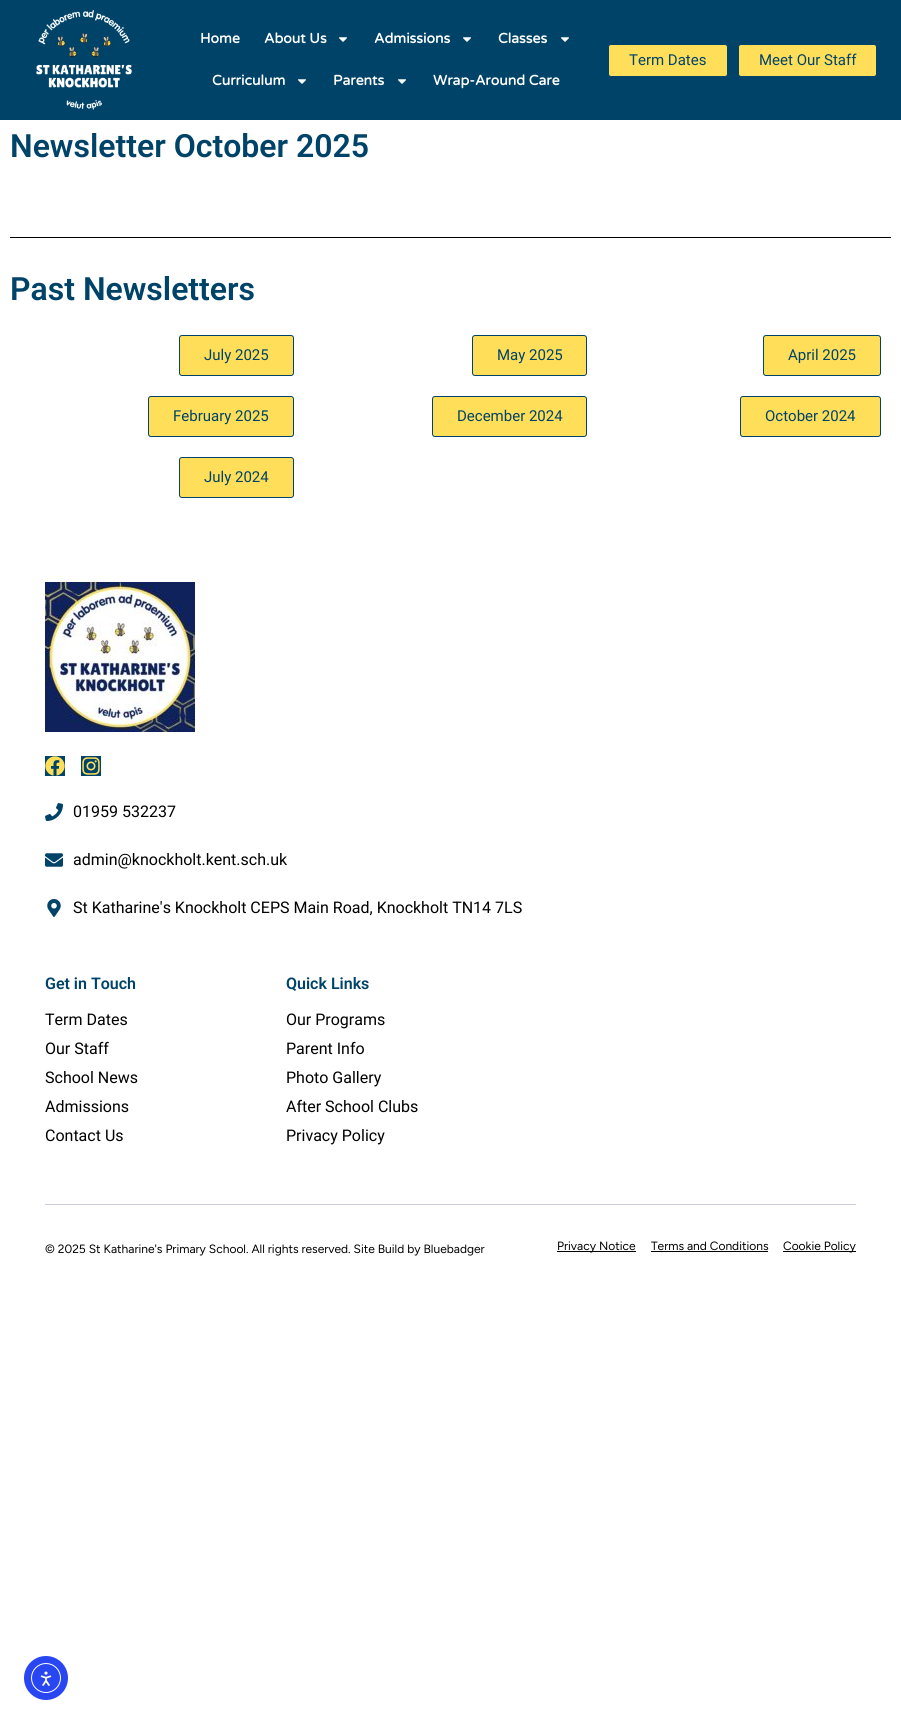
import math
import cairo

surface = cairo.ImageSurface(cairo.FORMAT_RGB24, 901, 1724)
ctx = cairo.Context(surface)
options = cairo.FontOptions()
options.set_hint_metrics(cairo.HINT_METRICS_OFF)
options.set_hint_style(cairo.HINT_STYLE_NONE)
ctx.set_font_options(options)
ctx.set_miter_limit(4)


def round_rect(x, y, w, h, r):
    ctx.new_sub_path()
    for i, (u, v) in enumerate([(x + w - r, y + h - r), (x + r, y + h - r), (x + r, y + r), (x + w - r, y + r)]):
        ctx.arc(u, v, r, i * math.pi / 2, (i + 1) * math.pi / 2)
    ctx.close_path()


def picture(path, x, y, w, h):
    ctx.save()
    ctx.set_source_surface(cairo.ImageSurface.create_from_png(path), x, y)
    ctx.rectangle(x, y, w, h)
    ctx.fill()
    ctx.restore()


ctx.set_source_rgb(1, 1, 1)
ctx.paint()
ctx.set_source_rgb(0, 0.263, 0.412)
ctx.rectangle(0, 0, 901, 120)
ctx.fill()
picture("img1.png", 36, 10, 96, 100)
ctx.select_font_face("Varela Round", cairo.FONT_SLANT_NORMAL, cairo.FONT_WEIGHT_BOLD)
ctx.set_font_size(14)
ctx.set_source_rgb(1, 1, 1)
ctx.move_to(200, 43)
ctx.show_text("Home")
ctx.move_to(264, 43)
ctx.show_text("About Us")
picture("img2.png", 339, 37, 8, 5)
ctx.move_to(374, 43)
ctx.show_text("Admissions")
picture("img2.png", 463, 37, 8, 5)
ctx.move_to(498, 43)
ctx.show_text("Classes")
picture("img2.png", 561, 37, 8, 5)
ctx.move_to(212, 85)
ctx.show_text("Curriculum")
picture("img2.png", 298, 79, 8, 5)
ctx.move_to(333, 85)
ctx.show_text("Parents")
picture("img2.png", 398, 79, 8, 5)
ctx.move_to(433, 85)
ctx.show_text("Wrap-Around Care")
ctx.set_source_rgb(1, 0.871, 0.349)
round_rect(608.5, 44.5, 119, 32, 2.5)
ctx.fill_preserve()
ctx.set_source_rgb(0, 0.263, 0.412)
ctx.set_line_width(1)
ctx.stroke()
ctx.select_font_face("Roboto")
ctx.set_font_size(15)
ctx.move_to(629, 65)
ctx.show_text("Term Dates")
ctx.set_source_rgb(1, 0.871, 0.349)
round_rect(738.5, 44.5, 138, 32, 2.5)
ctx.fill_preserve()
ctx.set_source_rgb(0, 0.263, 0.412)
ctx.stroke()
ctx.move_to(759, 65)
ctx.show_text("Meet Our Staff")
ctx.select_font_face("Roboto SemiBold")
ctx.set_font_size(32)
ctx.move_to(10, 157)
ctx.show_text("Newsletter October 2025")
ctx.set_source_rgb(0, 0, 0)
ctx.rectangle(10, 237, 881, 1)
ctx.fill()
ctx.set_source_rgb(0, 0.263, 0.412)
ctx.move_to(10, 300)
ctx.show_text("Past Newsletters")
ctx.set_source_rgb(1, 0.871, 0.349)
round_rect(179.5, 335.5, 114, 40, 2.5)
ctx.fill_preserve()
ctx.set_source_rgb(0, 0.263, 0.412)
ctx.stroke()
ctx.select_font_face("Roboto")
ctx.set_font_size(15)
ctx.move_to(204, 360)
ctx.show_text("July 2025")
ctx.set_source_rgb(1, 0.871, 0.349)
round_rect(472.5, 335.5, 114, 40, 2.5)
ctx.fill_preserve()
ctx.set_source_rgb(0, 0.263, 0.412)
ctx.stroke()
ctx.move_to(497, 360)
ctx.show_text("May 2025")
ctx.set_source_rgb(1, 0.871, 0.349)
round_rect(763.5, 335.5, 117, 40, 2.5)
ctx.fill_preserve()
ctx.set_source_rgb(0, 0.263, 0.412)
ctx.stroke()
ctx.move_to(788, 360)
ctx.show_text("April 2025")
ctx.set_source_rgb(1, 0.871, 0.349)
round_rect(148.5, 396.5, 145, 40, 2.5)
ctx.fill_preserve()
ctx.set_source_rgb(0, 0.263, 0.412)
ctx.stroke()
ctx.move_to(173, 421)
ctx.show_text("February 2025")
ctx.set_source_rgb(1, 0.871, 0.349)
round_rect(432.5, 396.5, 154, 40, 2.5)
ctx.fill_preserve()
ctx.set_source_rgb(0, 0.263, 0.412)
ctx.stroke()
ctx.move_to(457, 421)
ctx.show_text("December 2024")
ctx.set_source_rgb(1, 0.871, 0.349)
round_rect(740.5, 396.5, 140, 40, 2.5)
ctx.fill_preserve()
ctx.set_source_rgb(0, 0.263, 0.412)
ctx.stroke()
ctx.move_to(765, 421)
ctx.show_text("October 2024")
ctx.set_source_rgb(1, 0.871, 0.349)
round_rect(179.5, 457.5, 114, 40, 2.5)
ctx.fill_preserve()
ctx.set_source_rgb(0, 0.263, 0.412)
ctx.stroke()
ctx.move_to(204, 482)
ctx.show_text("July 2024")
picture("img3.png", 45, 582, 150, 150)
ctx.rectangle(45, 756, 20, 20)
ctx.fill()
picture("img4.png", 45, 756, 20, 20)
ctx.rectangle(81, 756, 20, 20)
ctx.fill()
picture("img5.png", 82, 757, 18, 18)
picture("img6.png", 45, 803, 18, 18)
ctx.set_font_size(16)
ctx.set_source_rgb(0, 0, 0)
ctx.move_to(73, 817)
ctx.show_text("01959 532237")
picture("img7.png", 45, 853, 18, 14)
ctx.move_to(73, 865)
ctx.show_text("admin@knockholt.kent.sch.uk")
picture("img8.png", 47, 899, 14, 18)
ctx.move_to(73, 913)
ctx.show_text("St Katharine's Knockholt CEPS Main Road, Knockholt TN14 7LS")
ctx.select_font_face("Roboto SemiBold")
ctx.set_source_rgb(0, 0.263, 0.412)
ctx.move_to(45, 989)
ctx.show_text("Get in Touch")
ctx.select_font_face("Roboto")
ctx.set_source_rgb(0, 0, 0)
ctx.move_to(45, 1025)
ctx.show_text("Term Dates")
ctx.move_to(45, 1054)
ctx.show_text("Our Staff")
ctx.move_to(45, 1083)
ctx.show_text("School News")
ctx.move_to(45, 1112)
ctx.show_text("Admissions")
ctx.move_to(45, 1141)
ctx.show_text("Contact Us")
ctx.select_font_face("Roboto SemiBold")
ctx.set_source_rgb(0, 0.263, 0.412)
ctx.move_to(286, 989)
ctx.show_text("Quick Links")
ctx.select_font_face("Roboto")
ctx.set_source_rgb(0, 0, 0)
ctx.move_to(286, 1025)
ctx.show_text("Our Programs")
ctx.move_to(286, 1054)
ctx.show_text("Parent Info")
ctx.move_to(286, 1083)
ctx.show_text("Photo Gallery")
ctx.move_to(286, 1112)
ctx.show_text("After School Clubs")
ctx.move_to(286, 1141)
ctx.show_text("Privacy Policy")
ctx.set_source_rgb(0.8, 0.8, 0.878)
ctx.rectangle(45, 1204, 811, 1)
ctx.fill()
ctx.select_font_face("Figtree")
ctx.set_font_size(12)
ctx.set_source_rgb(0, 0, 0)
ctx.move_to(45, 1253)
ctx.show_text("© 2025 St Katharine's Primary School. All rights reserved. Site Build by Bluebadger")
ctx.rectangle(557, 1251, 79, 1)
ctx.fill()
ctx.move_to(557, 1250)
ctx.show_text("Privacy Notice")
ctx.move_to(651, 1250)
ctx.show_text("Terms and Conditions")
ctx.rectangle(651, 1251, 117, 1)
ctx.fill()
ctx.rectangle(783, 1251, 73, 1)
ctx.fill()
ctx.move_to(783, 1250)
ctx.show_text("Cookie Policy")
ctx.set_source_rgb(0.157, 0.278, 0.953)
ctx.new_path()
ctx.arc(46, 1678, 22, 0, 2 * math.pi)
ctx.fill()
ctx.arc(46, 1678, 14.5, 0, 2 * math.pi)
ctx.set_source_rgb(1, 1, 1)
ctx.stroke()
picture("img9.png", 40, 1671, 12, 15)
surface.write_to_png("page.png")
